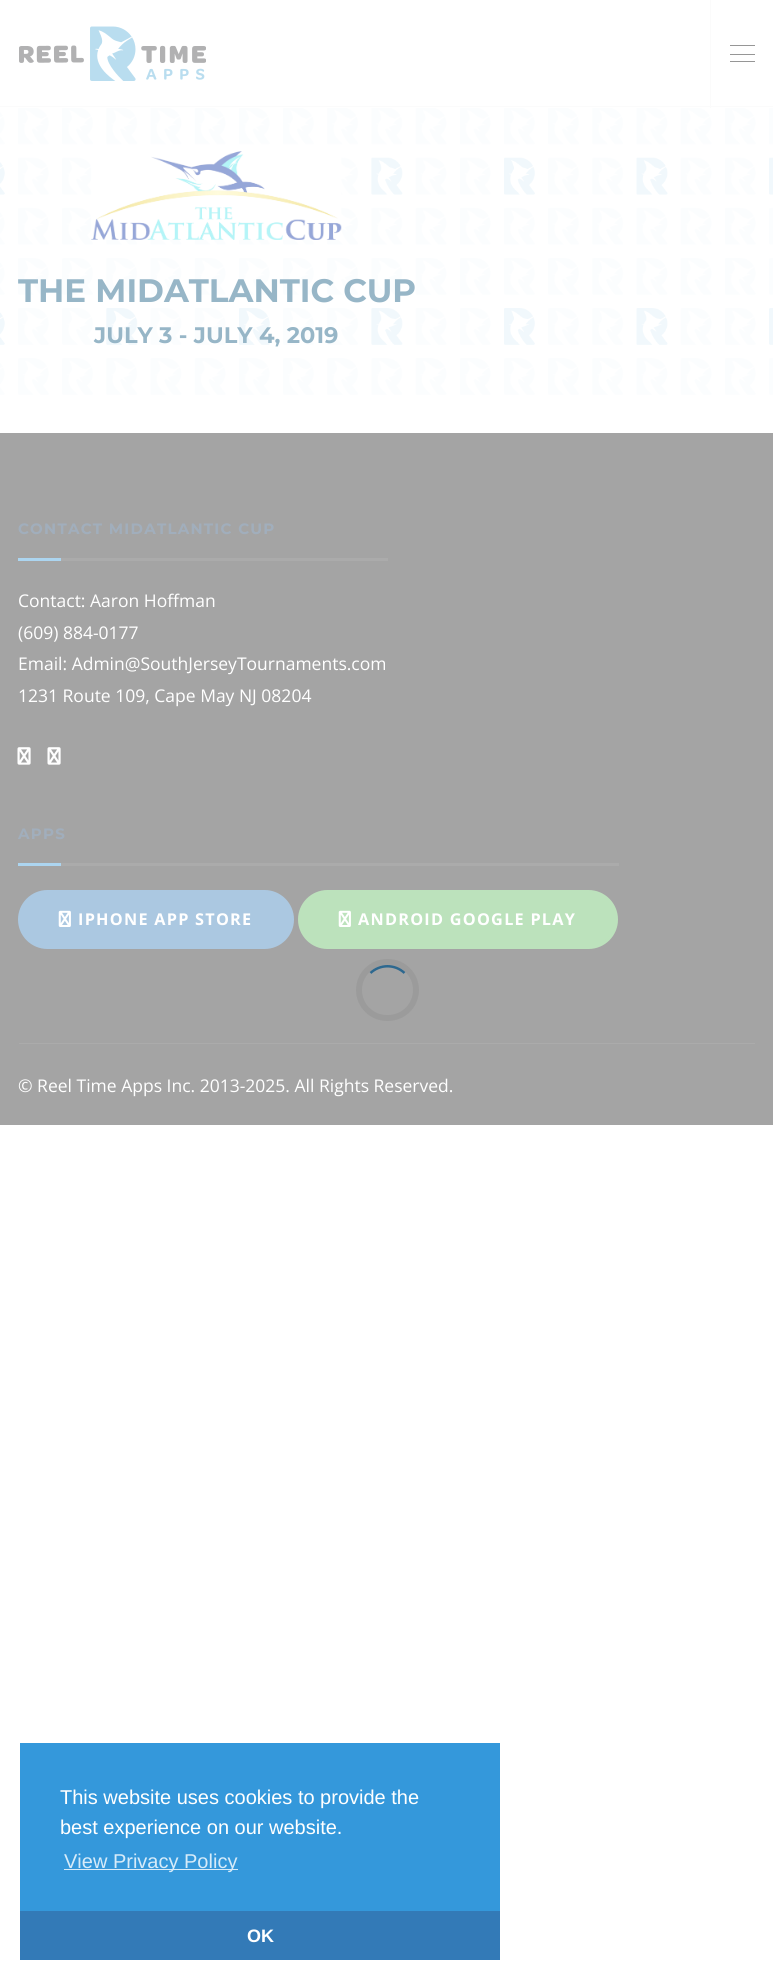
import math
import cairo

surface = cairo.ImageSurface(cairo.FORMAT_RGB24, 773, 1979)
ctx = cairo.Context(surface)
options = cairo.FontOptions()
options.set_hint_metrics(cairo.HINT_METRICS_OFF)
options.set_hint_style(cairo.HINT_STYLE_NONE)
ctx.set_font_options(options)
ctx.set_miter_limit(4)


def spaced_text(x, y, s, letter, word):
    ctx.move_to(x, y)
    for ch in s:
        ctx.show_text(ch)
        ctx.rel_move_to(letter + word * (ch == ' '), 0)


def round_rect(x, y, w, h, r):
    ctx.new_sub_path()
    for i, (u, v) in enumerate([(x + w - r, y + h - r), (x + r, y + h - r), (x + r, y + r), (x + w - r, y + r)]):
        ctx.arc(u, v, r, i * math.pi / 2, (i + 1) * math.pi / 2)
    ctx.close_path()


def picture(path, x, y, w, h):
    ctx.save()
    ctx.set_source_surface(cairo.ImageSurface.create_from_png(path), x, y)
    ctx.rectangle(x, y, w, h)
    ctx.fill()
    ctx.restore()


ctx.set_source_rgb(1, 1, 1)
ctx.paint()
ctx.set_source_rgb(0.984, 0.984, 0.984)
ctx.rectangle(0, 106, 773, 1)
ctx.fill()
picture("img1.png", 19, 26, 187, 55)
ctx.rectangle(710, 0, 1, 108)
ctx.fill()
ctx.set_source_rgb(0.588, 0.588, 0.588)
ctx.rectangle(730, 45, 25, 1)
ctx.fill()
ctx.rectangle(730, 54, 25, 1)
ctx.fill()
ctx.rectangle(730, 61, 25, 1)
ctx.fill()
picture("img2.png", 0, 108, 773, 287)
picture("img3.png", 91, 151, 251, 89)
ctx.select_font_face("Montserrat Thin")
ctx.set_font_size(32.5)
ctx.set_source_rgb(0.592, 0.714, 0.78)
ctx.move_to(18, 302)
ctx.show_text("THE MIDATLANTIC CUP")
ctx.set_font_size(22.5)
ctx.move_to(94, 343)
ctx.show_text("JULY 3 - JULY 4, 2019")
ctx.set_source_rgb(0.643, 0.643, 0.643)
ctx.rectangle(0, 433, 773, 692)
ctx.fill()
ctx.set_font_size(15)
ctx.set_source_rgb(0.631, 0.682, 0.737)
spaced_text(18, 534, "CONTACT MIDATLANTIC CUP", 1.25, 0)
ctx.set_source_rgb(0.675, 0.835, 0.941)
ctx.rectangle(18, 558, 43, 3)
ctx.fill()
ctx.set_source_rgb(0.671, 0.671, 0.671)
ctx.rectangle(61, 558, 327, 3)
ctx.fill()
ctx.select_font_face("Open Sans")
ctx.set_font_size(17.5)
ctx.set_source_rgb(1, 1, 1)
ctx.move_to(18, 607)
ctx.show_text("Contact: Aaron Hoffman")
ctx.move_to(18, 639)
ctx.show_text("(609) 884-0177")
ctx.move_to(18, 670)
ctx.show_text("Email: Admin@SouthJerseyTournaments.com")
ctx.move_to(18, 702)
ctx.show_text("1231 Route 109, Cape May NJ 08204")
picture("img4.png", 17, 747, 14, 18)
picture("img4.png", 47, 747, 14, 18)
ctx.select_font_face("Montserrat Thin")
ctx.set_font_size(15)
ctx.set_source_rgb(0.631, 0.682, 0.737)
spaced_text(18, 839, "APPS", 1.25, 0)
ctx.set_source_rgb(0.675, 0.835, 0.941)
ctx.rectangle(18, 863, 43, 3)
ctx.fill()
ctx.set_source_rgb(0.671, 0.671, 0.671)
ctx.rectangle(61, 863, 558, 3)
ctx.fill()
ctx.set_source_rgb(0.671, 0.784, 0.882)
round_rect(19.5, 891.5, 273, 56, 28)
ctx.fill_preserve()
ctx.set_line_width(3)
ctx.stroke()
picture("img5.png", 58, 910, 13, 17)
ctx.select_font_face("Open Sans", cairo.FONT_SLANT_NORMAL, cairo.FONT_WEIGHT_BOLD)
ctx.set_font_size(16.25)
ctx.set_source_rgb(1, 1, 1)
spaced_text(78, 925, "IPHONE APP STORE", 1.25, 0)
ctx.set_source_rgb(0.737, 0.886, 0.737)
round_rect(299.5, 891.5, 317, 56, 28)
ctx.fill_preserve()
ctx.stroke()
picture("img6.png", 338, 910, 13, 17)
ctx.set_source_rgb(1, 1, 1)
spaced_text(358, 925, "ANDROID GOOGLE PLAY", 1.25, 0)
ctx.set_source_rgb(0.671, 0.671, 0.671)
ctx.rectangle(19, 1043, 736, 1)
ctx.fill()
ctx.select_font_face("Open Sans")
ctx.set_font_size(17.5)
ctx.set_source_rgb(1, 1, 1)
ctx.move_to(18, 1092)
ctx.show_text("© Reel Time Apps Inc. 2013-2025. All Rights Reserved.")
round_rect(359, 962, 57, 56, 28)
ctx.set_source_rgb(0.608, 0.608, 0.608)
ctx.set_line_width(6)
ctx.stroke()
ctx.new_path()
ctx.move_to(370.5, 973)
ctx.curve_to(380, 964, 395, 964, 404.5, 973)
ctx.set_source_rgb(0.176, 0.408, 0.561)
ctx.set_line_width(2.5)
ctx.stroke()
ctx.set_source_rgb(0.204, 0.596, 0.859)
ctx.rectangle(20, 1743, 480, 168)
ctx.fill()
ctx.select_font_face("Liberation Sans")
ctx.set_font_size(20)
ctx.set_source_rgb(1, 1, 1)
ctx.move_to(60, 1804)
ctx.show_text("This website uses cookies to provide the")
ctx.move_to(60, 1834)
ctx.show_text("best experience on our website.")
ctx.set_source_rgb(0.839, 0.918, 0.973)
ctx.rectangle(64, 1869, 174, 1)
ctx.fill()
ctx.move_to(64, 1868)
ctx.show_text("View Privacy Policy")
ctx.set_source_rgb(0.2, 0.478, 0.718)
ctx.rectangle(20, 1911, 480, 49)
ctx.fill()
ctx.select_font_face("Liberation Sans", cairo.FONT_SLANT_NORMAL, cairo.FONT_WEIGHT_BOLD)
ctx.set_font_size(18)
ctx.set_source_rgb(1, 1, 1)
ctx.move_to(247, 1942)
ctx.show_text("OK")
surface.write_to_png("page.png")
